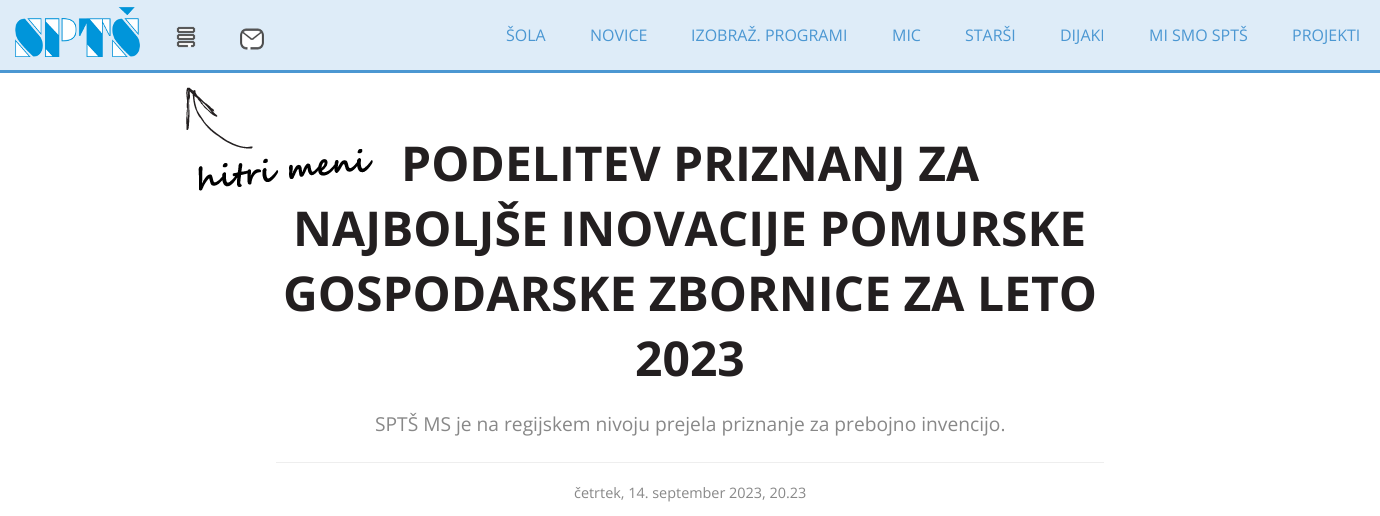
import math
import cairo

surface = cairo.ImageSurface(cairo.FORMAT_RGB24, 1380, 516)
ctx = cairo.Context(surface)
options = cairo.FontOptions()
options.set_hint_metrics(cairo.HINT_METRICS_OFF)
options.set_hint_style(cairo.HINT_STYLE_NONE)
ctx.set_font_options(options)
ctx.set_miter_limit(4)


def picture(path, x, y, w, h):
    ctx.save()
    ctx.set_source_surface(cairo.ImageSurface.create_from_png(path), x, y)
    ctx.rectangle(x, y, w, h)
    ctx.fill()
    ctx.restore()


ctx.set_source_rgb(1, 1, 1)
ctx.paint()
ctx.set_source_rgb(0.871, 0.925, 0.969)
ctx.rectangle(0, 0, 1380, 70)
ctx.fill()
ctx.set_source_rgb(0.294, 0.592, 0.824)
ctx.rectangle(0, 70, 1380, 3)
ctx.fill()
picture("img1.png", 15, 7, 125, 50)
picture("img2.png", 176, 26, 20, 22)
picture("img3.png", 240, 28, 24, 22)
picture("img4.png", 186, 87, 187, 104)
ctx.select_font_face("Open Sans")
ctx.set_font_size(16)
ctx.move_to(506, 41)
ctx.show_text("ŠOLA")
ctx.move_to(590, 41)
ctx.show_text("NOVICE")
ctx.move_to(691, 41)
ctx.show_text("IZOBRAŽ. PROGRAMI")
ctx.move_to(892, 41)
ctx.show_text("MIC")
ctx.move_to(965, 41)
ctx.show_text("STARŠI")
ctx.move_to(1060, 41)
ctx.show_text("DIJAKI")
ctx.move_to(1149, 41)
ctx.show_text("MI SMO SPTŠ")
ctx.move_to(1292, 41)
ctx.show_text("PROJEKTI")
ctx.select_font_face("Open Sans", cairo.FONT_SLANT_NORMAL, cairo.FONT_WEIGHT_BOLD)
ctx.set_font_size(48)
ctx.set_source_rgb(0.137, 0.122, 0.125)
ctx.move_to(401, 181)
ctx.show_text("PODELITEV PRIZNANJ ZA")
ctx.move_to(293, 246)
ctx.show_text("NAJBOLJŠE INOVACIJE POMURSKE")
ctx.move_to(283, 311)
ctx.show_text("GOSPODARSKE ZBORNICE ZA LETO")
ctx.move_to(635, 376)
ctx.show_text("2023")
ctx.select_font_face("Open Sans")
ctx.set_font_size(19.2)
ctx.set_source_rgb(0.533, 0.533, 0.533)
ctx.move_to(375, 431)
ctx.show_text("SPTŠ MS je na regijskem nivoju prejela priznanje za prebojno invencijo.")
ctx.set_source_rgb(0.933, 0.933, 0.933)
ctx.rectangle(276, 462, 828, 1)
ctx.fill()
ctx.set_font_size(14.4)
ctx.set_source_rgb(0.533, 0.533, 0.533)
ctx.move_to(574, 498)
ctx.show_text("četrtek, 14. september 2023, 20.23")
surface.write_to_png("page.png")
